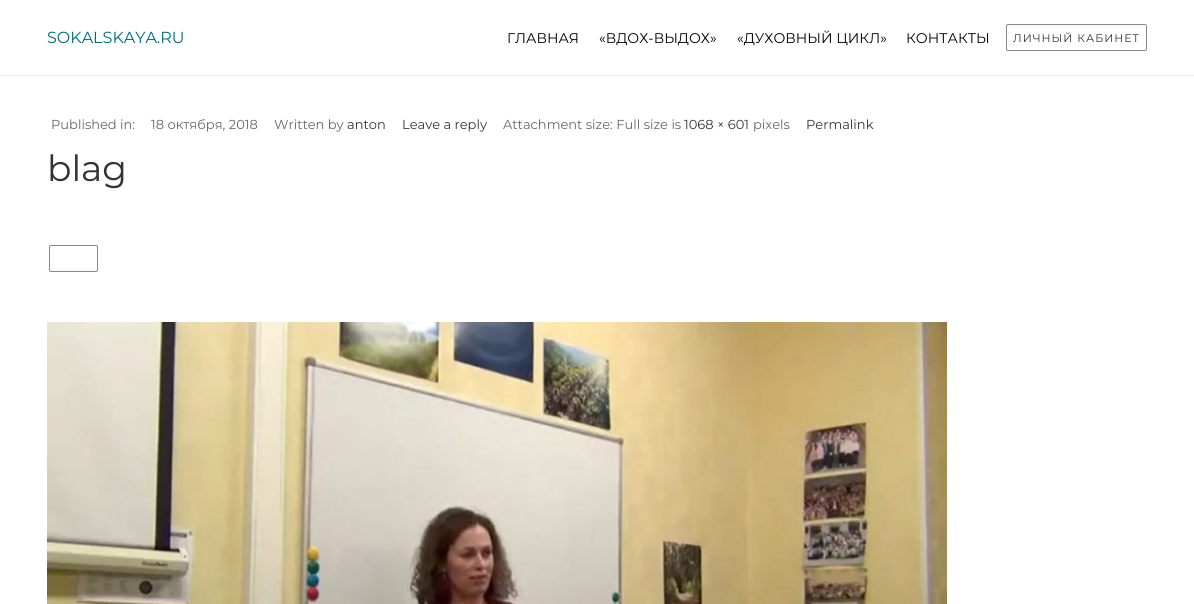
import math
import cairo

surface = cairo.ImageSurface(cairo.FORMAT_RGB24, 1194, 604)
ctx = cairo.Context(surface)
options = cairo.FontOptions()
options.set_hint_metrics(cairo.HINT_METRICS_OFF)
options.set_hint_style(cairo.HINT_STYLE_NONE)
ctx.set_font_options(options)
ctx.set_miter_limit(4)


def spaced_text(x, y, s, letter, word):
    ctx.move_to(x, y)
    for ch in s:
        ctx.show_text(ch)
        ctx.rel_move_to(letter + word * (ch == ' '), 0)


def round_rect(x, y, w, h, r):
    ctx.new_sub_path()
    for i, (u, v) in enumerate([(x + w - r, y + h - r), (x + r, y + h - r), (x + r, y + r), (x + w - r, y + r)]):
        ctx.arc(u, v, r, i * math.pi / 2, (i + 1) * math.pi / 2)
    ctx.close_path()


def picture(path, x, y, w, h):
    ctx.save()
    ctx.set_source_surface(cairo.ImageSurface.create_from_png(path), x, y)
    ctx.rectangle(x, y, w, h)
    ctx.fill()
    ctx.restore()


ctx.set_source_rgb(1, 1, 1)
ctx.paint()
ctx.set_source_rgb(0.933, 0.933, 0.933)
ctx.rectangle(0, 75, 1194, 1)
ctx.fill()
ctx.select_font_face("Montserrat Thin")
ctx.set_font_size(16)
ctx.set_source_rgb(0, 0.424, 0.463)
ctx.move_to(47, 43)
ctx.show_text("SOKALSKAYA.RU")
ctx.set_font_size(14)
ctx.set_source_rgb(0, 0, 0)
ctx.move_to(507, 43)
ctx.show_text("ГЛАВНАЯ")
ctx.move_to(599, 43)
ctx.show_text("«ВДОХ-ВЫДОХ»")
ctx.move_to(737, 43)
ctx.show_text("«ДУХОВНЫЙ ЦИКЛ»")
ctx.move_to(906, 43)
ctx.show_text("КОНТАКТЫ")
round_rect(1006.5, 24.5, 140, 26, 1.5)
ctx.set_source_rgb(0.533, 0.533, 0.533)
ctx.set_line_width(1)
ctx.stroke()
ctx.set_font_size(11)
ctx.set_source_rgb(0.2, 0.2, 0.2)
spaced_text(1013, 42, "ЛИЧНЫЙ КАБИНЕТ", 1, 0)
ctx.set_font_size(13)
ctx.set_source_rgb(0.4, 0.4, 0.4)
ctx.move_to(51, 129)
ctx.show_text("Published in:")
ctx.move_to(151, 129)
ctx.show_text("18 октября, 2018")
ctx.move_to(274, 129)
ctx.show_text("Written by")
ctx.set_source_rgb(0.2, 0.2, 0.2)
ctx.move_to(347, 129)
ctx.show_text("anton")
ctx.move_to(402, 129)
ctx.show_text("Leave a reply")
ctx.set_source_rgb(0.4, 0.4, 0.4)
ctx.move_to(503, 129)
ctx.show_text("Attachment size: Full size is")
ctx.set_source_rgb(0.2, 0.2, 0.2)
ctx.move_to(684, 129)
ctx.show_text("1068 × 601")
ctx.set_source_rgb(0.4, 0.4, 0.4)
ctx.move_to(753, 129)
ctx.show_text("pixels")
ctx.set_source_rgb(0.2, 0.2, 0.2)
ctx.move_to(806, 129)
ctx.show_text("Permalink")
ctx.set_font_size(36)
ctx.move_to(47, 181)
ctx.show_text("blag")
round_rect(49.5, 245.5, 48, 26, 1.5)
ctx.set_source_rgb(0.533, 0.533, 0.533)
ctx.stroke()
picture("img1.png", 47, 322, 900, 282)
surface.write_to_png("page.png")
